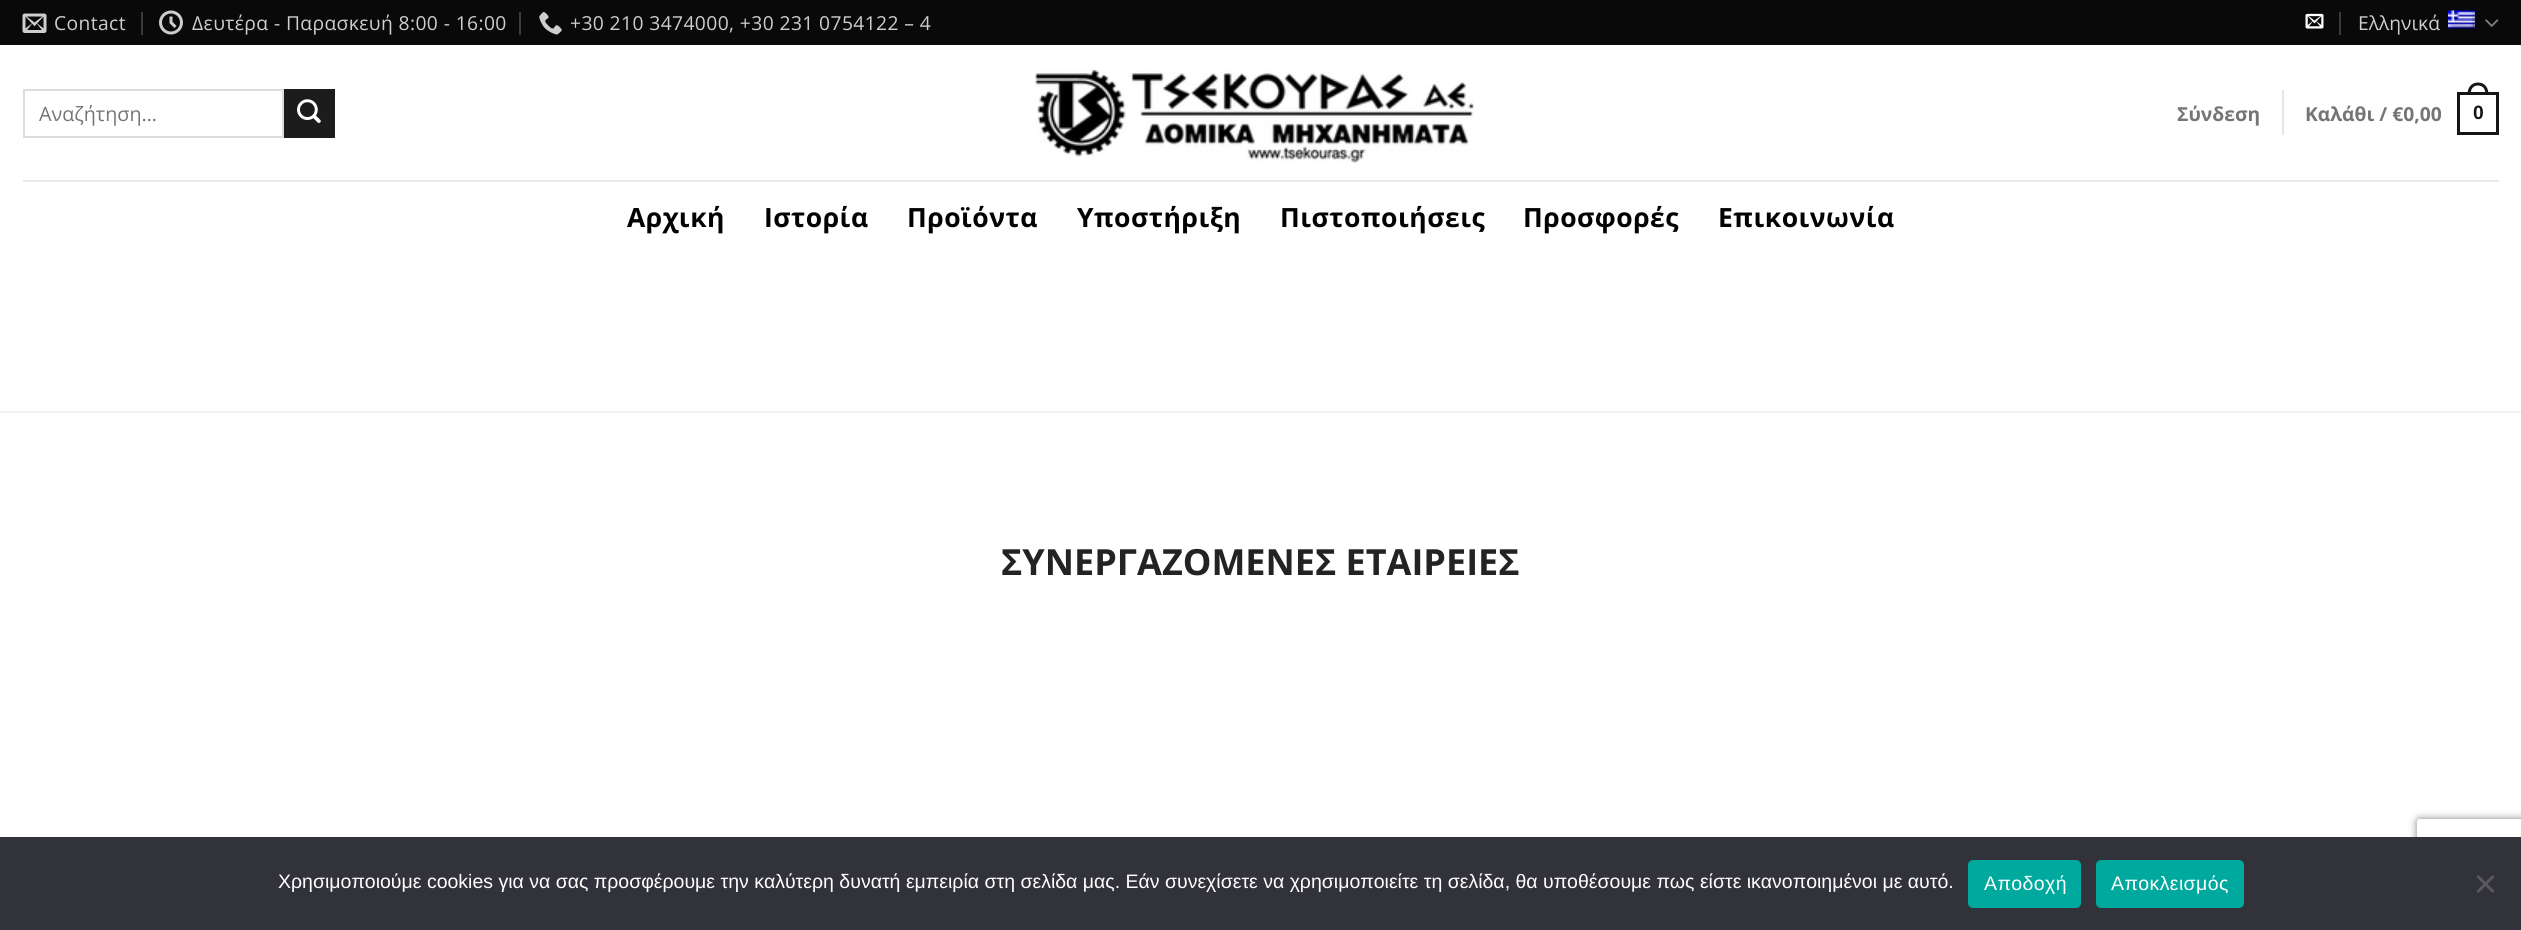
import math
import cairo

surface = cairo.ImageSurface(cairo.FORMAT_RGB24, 2521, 930)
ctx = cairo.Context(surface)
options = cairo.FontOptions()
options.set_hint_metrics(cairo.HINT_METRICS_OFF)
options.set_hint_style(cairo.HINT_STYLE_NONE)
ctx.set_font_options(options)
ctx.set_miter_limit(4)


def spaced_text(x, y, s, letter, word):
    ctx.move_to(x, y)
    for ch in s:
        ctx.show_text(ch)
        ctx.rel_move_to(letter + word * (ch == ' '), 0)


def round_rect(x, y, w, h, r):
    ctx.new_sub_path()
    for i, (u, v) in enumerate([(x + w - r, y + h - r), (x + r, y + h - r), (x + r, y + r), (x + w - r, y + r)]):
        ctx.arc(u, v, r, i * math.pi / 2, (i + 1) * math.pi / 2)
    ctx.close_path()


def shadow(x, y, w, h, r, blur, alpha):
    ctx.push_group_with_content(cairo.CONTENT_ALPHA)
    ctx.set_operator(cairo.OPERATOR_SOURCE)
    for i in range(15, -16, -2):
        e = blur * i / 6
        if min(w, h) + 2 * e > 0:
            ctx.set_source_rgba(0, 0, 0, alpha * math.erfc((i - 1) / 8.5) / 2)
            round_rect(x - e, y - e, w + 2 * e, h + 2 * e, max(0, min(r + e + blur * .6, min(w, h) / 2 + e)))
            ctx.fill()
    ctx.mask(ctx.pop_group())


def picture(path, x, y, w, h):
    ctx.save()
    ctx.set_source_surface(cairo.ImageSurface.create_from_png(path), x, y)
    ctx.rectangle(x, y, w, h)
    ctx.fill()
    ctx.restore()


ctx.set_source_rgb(1, 1, 1)
ctx.paint()
ctx.set_source_rgb(0.039, 0.039, 0.039)
ctx.rectangle(0, 0, 2521, 45)
ctx.fill()
picture("img1.png", 22, 13, 25, 20)
ctx.select_font_face("Open Sans")
ctx.set_font_size(19.25)
ctx.set_source_rgb(0.808, 0.808, 0.808)
spaced_text(54, 30, "Contact", 0.4, 0)
ctx.set_source_rgb(0.231, 0.231, 0.231)
ctx.rectangle(141, 12, 2, 23)
ctx.fill()
picture("img2.png", 159, 10, 24, 25)
ctx.set_source_rgb(0.808, 0.808, 0.808)
spaced_text(192, 30, "Δευτέρα - Παρασκευή 8:00 - 16:00", 0.4, 0)
ctx.set_source_rgb(0.231, 0.231, 0.231)
ctx.rectangle(519, 12, 2, 23)
ctx.fill()
picture("img3.png", 539, 12, 23, 23)
ctx.set_source_rgb(0.808, 0.808, 0.808)
spaced_text(570, 30, "+30 210 3474000, +30 231 0754122 – 4", 0.4, 0)
picture("img4.png", 2305, 13, 19, 16)
ctx.set_source_rgb(0.231, 0.231, 0.231)
ctx.rectangle(2339, 12, 2, 23)
ctx.fill()
ctx.set_source_rgb(0.808, 0.808, 0.808)
ctx.move_to(2358, 30)
ctx.show_text("Ελληνικά")
picture("img5.png", 2448, 10, 27, 19)
picture("img6.png", 2485, 19, 14, 8)
ctx.rectangle(24, 90, 259, 47)
ctx.set_source_rgb(0.867, 0.867, 0.867)
ctx.stroke()
ctx.set_font_size(19.75)
ctx.set_source_rgb(0.459, 0.459, 0.459)
ctx.move_to(39, 121)
ctx.show_text("Αναζήτηση…")
ctx.set_source_rgb(0.11, 0.11, 0.11)
ctx.rectangle(284, 89, 51, 49)
ctx.fill()
picture("img7.png", 297, 99, 24, 24)
picture("img8.png", 1035, 69, 439, 94)
ctx.select_font_face("Open Sans", cairo.FONT_SLANT_NORMAL, cairo.FONT_WEIGHT_BOLD)
ctx.set_font_size(19.25)
ctx.set_source_rgb(0.459, 0.459, 0.459)
ctx.move_to(2177, 121)
ctx.show_text("Σύνδεση")
ctx.set_source_rgb(0.902, 0.902, 0.902)
ctx.rectangle(2282, 90, 2, 45)
ctx.fill()
ctx.set_source_rgb(0.459, 0.459, 0.459)
ctx.move_to(2305, 121)
ctx.show_text("Καλάθι / €0,00")
ctx.rectangle(2458.5, 93.5, 39, 40)
ctx.set_source_rgb(0.086, 0.086, 0.086)
ctx.set_line_width(3)
ctx.stroke()
ctx.set_fill_rule(cairo.FILL_RULE_EVEN_ODD)
ctx.new_path()
ctx.move_to(2478, 82.5)
ctx.curve_to(2485, 82.5, 2488.5, 88, 2488.5, 94.5)
ctx.line_to(2467.5, 94.5)
ctx.curve_to(2467.5, 88, 2471, 82.5, 2478, 82.5)
ctx.close_path()
ctx.move_to(2478, 85.5)
ctx.curve_to(2483.5, 85.5, 2485.5, 90, 2485.5, 94.5)
ctx.line_to(2470.5, 94.5)
ctx.curve_to(2470.5, 90, 2472.5, 85.5, 2478, 85.5)
ctx.close_path()
ctx.fill()
ctx.select_font_face("Liberation Sans", cairo.FONT_SLANT_NORMAL, cairo.FONT_WEIGHT_BOLD)
ctx.move_to(2473, 119)
ctx.show_text("0")
ctx.set_source_rgb(0.914, 0.914, 0.914)
ctx.rectangle(23, 180, 2476, 2)
ctx.fill()
ctx.select_font_face("Open Sans", cairo.FONT_SLANT_NORMAL, cairo.FONT_WEIGHT_BOLD)
ctx.set_font_size(26.5)
ctx.set_source_rgb(0.008, 0.008, 0.008)
spaced_text(627, 227, "Αρχική", 0.5, 0)
spaced_text(764, 227, "Ιστορία", 0.5, 0)
spaced_text(907, 227, "Προϊόντα", 0.5, 0)
spaced_text(1077, 227, "Υποστήριξη", 0.5, 0)
spaced_text(1280, 227, "Πιστοποιήσεις", 0.5, 0)
spaced_text(1523, 227, "Προσφορές", 0.5, 0)
spaced_text(1718, 227, "Επικοινωνία", 0.5, 0)
ctx.set_source_rgb(0.949, 0.949, 0.949)
ctx.rectangle(0, 411, 2521, 2)
ctx.fill()
ctx.set_font_size(36)
ctx.set_source_rgb(0.137, 0.137, 0.137)
ctx.move_to(1001, 575)
ctx.show_text("ΣΥΝΕΡΓΑΖΟΜΕΝΕΣ ΕΤΑΙΡΕΙΕΣ")
ctx.save()
ctx.new_path()
ctx.move_to(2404, 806)
ctx.line_to(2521, 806)
ctx.line_to(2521, 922)
ctx.line_to(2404, 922)
ctx.close_path()
ctx.move_to(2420, 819)
ctx.line_to(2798, 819)
ctx.curve_to(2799.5, 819, 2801, 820.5, 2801, 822)
ctx.line_to(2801, 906)
ctx.curve_to(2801, 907.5, 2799.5, 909, 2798, 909)
ctx.line_to(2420, 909)
ctx.curve_to(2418.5, 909, 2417, 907.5, 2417, 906)
ctx.line_to(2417, 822)
ctx.curve_to(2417, 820.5, 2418.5, 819, 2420, 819)
ctx.close_path()
ctx.clip()
ctx.set_source_rgb(0.502, 0.502, 0.502)
shadow(2417, 819, 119, 90, 3, 4, 1)
ctx.restore()
ctx.set_source_rgb(0.196, 0.196, 0.227)
ctx.rectangle(0, 837, 2521, 93)
ctx.fill()
ctx.select_font_face("Liberation Sans")
ctx.set_font_size(19.5)
ctx.set_source_rgb(1, 1, 1)
ctx.move_to(278, 888)
ctx.show_text("Χρησιμοποιούμε cookies για να σας προσφέρουμε την καλύτερη δυνατή εμπειρία στη σελίδα μας. Εάν συνεχίσετε να χρησιμοποιείτε τη σελίδα, θα υποθέσουμε πως είστε ικανοποιημένοι με αυτό.")
ctx.set_source_rgb(0, 0.663, 0.616)
round_rect(1968, 860, 113, 48, 5)
ctx.fill()
ctx.set_source_rgb(1, 1, 1)
spaced_text(1984, 890, "Αποδοχή", 0.4, 0)
ctx.set_source_rgb(0, 0.663, 0.616)
round_rect(2096, 860, 148, 48, 5)
ctx.fill()
ctx.set_source_rgb(1, 1, 1)
spaced_text(2111, 890, "Αποκλεισμός", 0.4, 0)
ctx.set_source_rgb(0.349, 0.349, 0.365)
ctx.set_fill_rule(cairo.FILL_RULE_WINDING)
ctx.new_path()
ctx.move_to(2492.5, 875)
ctx.line_to(2494.5, 877)
ctx.line_to(2478.5, 893)
ctx.line_to(2476.5, 891)
ctx.close_path()
ctx.fill()
ctx.new_path()
ctx.move_to(2476.5, 877)
ctx.line_to(2478.5, 875)
ctx.line_to(2494.5, 891)
ctx.line_to(2492.5, 893)
ctx.close_path()
ctx.fill()
surface.write_to_png("page.png")
